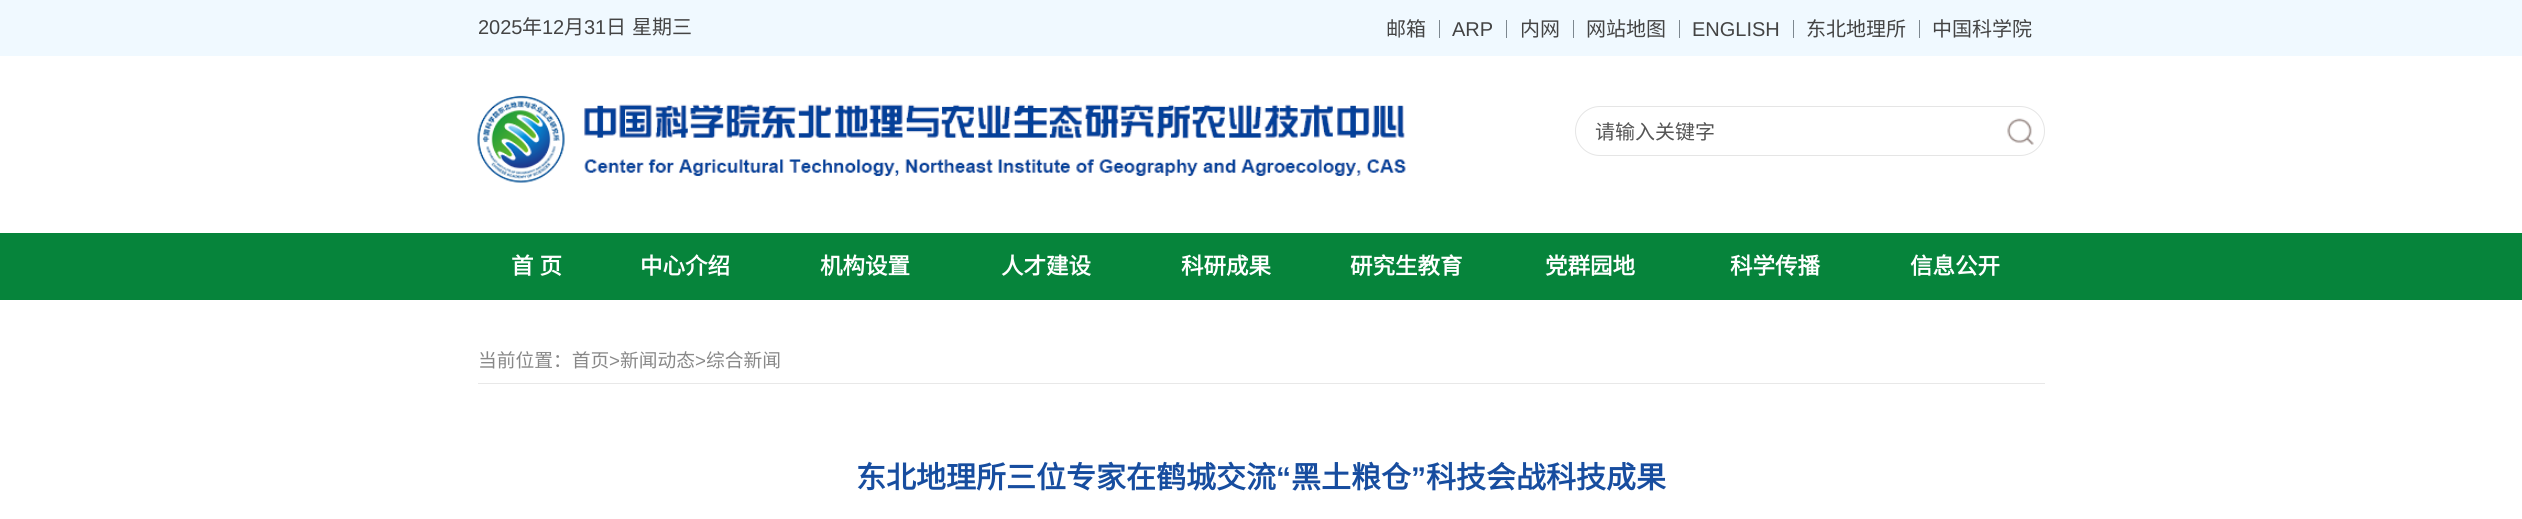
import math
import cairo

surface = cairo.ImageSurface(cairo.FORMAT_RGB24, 2522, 519)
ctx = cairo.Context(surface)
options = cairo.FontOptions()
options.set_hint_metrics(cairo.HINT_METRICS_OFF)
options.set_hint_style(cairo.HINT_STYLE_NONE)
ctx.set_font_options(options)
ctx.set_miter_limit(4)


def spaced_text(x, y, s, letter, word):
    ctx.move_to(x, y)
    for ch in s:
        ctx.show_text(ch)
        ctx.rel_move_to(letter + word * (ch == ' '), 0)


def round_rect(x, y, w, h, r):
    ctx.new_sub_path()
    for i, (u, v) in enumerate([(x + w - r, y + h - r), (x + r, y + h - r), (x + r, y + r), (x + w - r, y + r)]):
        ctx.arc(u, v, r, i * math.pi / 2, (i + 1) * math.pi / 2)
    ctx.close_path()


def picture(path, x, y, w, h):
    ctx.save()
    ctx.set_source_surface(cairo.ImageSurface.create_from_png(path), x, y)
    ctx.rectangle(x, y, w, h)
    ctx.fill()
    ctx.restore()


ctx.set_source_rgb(1, 1, 1)
ctx.paint()
ctx.set_source_rgb(0.941, 0.973, 1)
ctx.rectangle(0, 0, 2522, 56)
ctx.fill()
ctx.select_font_face("Liberation Sans")
ctx.set_font_size(20)
ctx.set_source_rgb(0.267, 0.267, 0.267)
ctx.move_to(478, 34)
ctx.show_text("2025")
ctx.select_font_face("Noto Sans CJK SC")
ctx.move_to(522, 34)
ctx.show_text("年")
ctx.select_font_face("Liberation Sans")
ctx.move_to(542, 34)
ctx.show_text("12")
ctx.select_font_face("Noto Sans CJK SC")
ctx.move_to(564, 34)
ctx.show_text("月")
ctx.select_font_face("Liberation Sans")
ctx.move_to(584, 34)
ctx.show_text("31")
ctx.select_font_face("Noto Sans CJK SC")
ctx.move_to(606, 34)
ctx.show_text("日")
ctx.move_to(632, 34)
ctx.show_text("星期三")
ctx.set_source_rgb(0.49, 0.533, 0.565)
ctx.rectangle(1439, 20, 1, 18)
ctx.fill()
ctx.set_source_rgb(0.267, 0.267, 0.267)
ctx.move_to(1386, 36)
ctx.show_text("邮箱")
ctx.set_source_rgb(0.49, 0.533, 0.565)
ctx.rectangle(1506, 20, 1, 18)
ctx.fill()
ctx.select_font_face("Liberation Sans")
ctx.set_source_rgb(0.267, 0.267, 0.267)
ctx.move_to(1452, 36)
ctx.show_text("ARP")
ctx.set_source_rgb(0.49, 0.533, 0.565)
ctx.rectangle(1573, 20, 1, 18)
ctx.fill()
ctx.select_font_face("Noto Sans CJK SC")
ctx.set_source_rgb(0.267, 0.267, 0.267)
ctx.move_to(1520, 36)
ctx.show_text("内网")
ctx.set_source_rgb(0.49, 0.533, 0.565)
ctx.rectangle(1679, 20, 1, 18)
ctx.fill()
ctx.set_source_rgb(0.267, 0.267, 0.267)
ctx.move_to(1586, 36)
ctx.show_text("网站地图")
ctx.set_source_rgb(0.49, 0.533, 0.565)
ctx.rectangle(1793, 20, 1, 18)
ctx.fill()
ctx.select_font_face("Liberation Sans")
ctx.set_source_rgb(0.267, 0.267, 0.267)
ctx.move_to(1692, 36)
ctx.show_text("ENGLISH")
ctx.set_source_rgb(0.49, 0.533, 0.565)
ctx.rectangle(1919, 20, 1, 18)
ctx.fill()
ctx.select_font_face("Noto Sans CJK SC")
ctx.set_source_rgb(0.267, 0.267, 0.267)
ctx.move_to(1806, 36)
ctx.show_text("东北地理所")
ctx.move_to(1932, 36)
ctx.show_text("中国科学院")
picture("img1.png", 477, 95, 929, 88)
round_rect(1575.5, 106.5, 469, 49, 24.5)
ctx.set_source_rgb(0.898, 0.898, 0.898)
ctx.set_line_width(1)
ctx.stroke()
ctx.set_source_rgb(0.333, 0.333, 0.333)
ctx.move_to(1595, 139)
ctx.show_text("请输入关键字")
picture("img2.png", 2007, 118, 27, 27)
ctx.set_source_rgb(0.024, 0.518, 0.231)
ctx.rectangle(0, 233, 2522, 67)
ctx.fill()
ctx.select_font_face("Noto Sans CJK SC", cairo.FONT_SLANT_NORMAL, cairo.FONT_WEIGHT_BOLD)
ctx.set_font_size(22.5)
ctx.set_source_rgb(1, 1, 1)
spaced_text(511, 274, "首 页", 0, 1)
ctx.move_to(640, 274)
ctx.show_text("中心介绍")
ctx.move_to(820, 274)
ctx.show_text("机构设置")
ctx.move_to(1001, 274)
ctx.show_text("人才建设")
ctx.move_to(1181, 274)
ctx.show_text("科研成果")
ctx.move_to(1350, 274)
ctx.show_text("研究生教育")
ctx.move_to(1545, 274)
ctx.show_text("党群园地")
ctx.move_to(1730, 274)
ctx.show_text("科学传播")
ctx.move_to(1910, 274)
ctx.show_text("信息公开")
ctx.set_source_rgb(0.91, 0.91, 0.91)
ctx.rectangle(478, 383, 1567, 1)
ctx.fill()
ctx.select_font_face("Noto Sans CJK SC")
ctx.set_font_size(18.75)
ctx.set_source_rgb(0.533, 0.533, 0.533)
ctx.move_to(478, 367)
ctx.show_text("当前位置：首页")
ctx.select_font_face("Liberation Sans")
ctx.move_to(609, 367)
ctx.show_text(">")
ctx.select_font_face("Noto Sans CJK SC")
ctx.move_to(620, 367)
ctx.show_text("新闻动态")
ctx.select_font_face("Liberation Sans")
ctx.move_to(695, 367)
ctx.show_text(">")
ctx.select_font_face("Noto Sans CJK SC")
ctx.move_to(706, 367)
ctx.show_text("综合新闻")
ctx.select_font_face("Noto Sans CJK SC", cairo.FONT_SLANT_NORMAL, cairo.FONT_WEIGHT_BOLD)
ctx.set_font_size(30)
ctx.set_source_rgb(0.09, 0.302, 0.624)
ctx.move_to(856, 488)
ctx.show_text("东北地理所三位专家在鹤城交流")
ctx.select_font_face("Liberation Sans", cairo.FONT_SLANT_NORMAL, cairo.FONT_WEIGHT_BOLD)
ctx.move_to(1276, 488)
ctx.show_text("“")
ctx.select_font_face("Noto Sans CJK SC", cairo.FONT_SLANT_NORMAL, cairo.FONT_WEIGHT_BOLD)
ctx.move_to(1291, 488)
ctx.show_text("黑土粮仓")
ctx.select_font_face("Liberation Sans", cairo.FONT_SLANT_NORMAL, cairo.FONT_WEIGHT_BOLD)
ctx.move_to(1411, 488)
ctx.show_text("”")
ctx.select_font_face("Noto Sans CJK SC", cairo.FONT_SLANT_NORMAL, cairo.FONT_WEIGHT_BOLD)
ctx.move_to(1426, 488)
ctx.show_text("科技会战科技成果")
surface.write_to_png("page.png")
